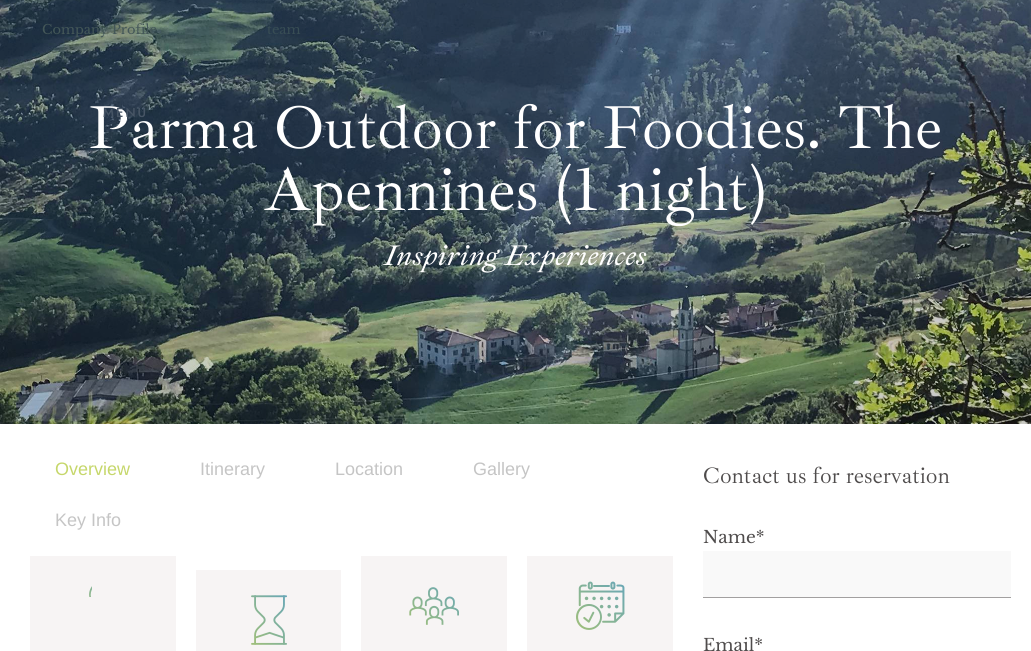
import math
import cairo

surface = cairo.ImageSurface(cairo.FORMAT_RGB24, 1031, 651)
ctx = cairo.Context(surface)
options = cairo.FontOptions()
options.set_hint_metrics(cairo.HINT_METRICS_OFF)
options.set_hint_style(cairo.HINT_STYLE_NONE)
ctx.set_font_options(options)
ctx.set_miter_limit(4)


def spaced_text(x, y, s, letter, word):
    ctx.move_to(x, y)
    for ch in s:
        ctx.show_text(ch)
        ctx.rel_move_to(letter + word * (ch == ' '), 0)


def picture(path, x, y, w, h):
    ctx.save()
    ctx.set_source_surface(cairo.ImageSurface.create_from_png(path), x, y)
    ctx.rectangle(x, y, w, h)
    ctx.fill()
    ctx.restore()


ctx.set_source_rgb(1, 1, 1)
ctx.paint()
picture("img1.png", 0, 0, 1031, 424)
ctx.select_font_face("Libre Baskerville")
ctx.set_font_size(13)
ctx.set_source_rgb(0.267, 0.341, 0.345)
ctx.move_to(42, 34)
ctx.show_text("Company Profile")
ctx.set_source_rgb(0.22, 0.302, 0.329)
ctx.move_to(267, 34)
ctx.show_text("team")
ctx.set_source_rgb(0.165, 0.235, 0.31)
ctx.move_to(375, 34)
ctx.show_text("Y")
ctx.set_source_rgb(0.216, 0.294, 0.392)
ctx.move_to(614, 45)
ctx.show_text("7")
ctx.select_font_face("Ibarra Real Nova")
ctx.set_font_size(62)
ctx.set_source_rgb(1, 1, 1)
ctx.move_to(88, 148)
ctx.show_text("Parma Outdoor for Foodies. The")
ctx.select_font_face("Jost Medium")
ctx.set_font_size(13)
ctx.set_source_rgb(0.278, 0.333, 0.396)
spaced_text(103, 117, "MENU", 2, 0)
ctx.select_font_face("Ibarra Real Nova")
ctx.set_font_size(62)
ctx.set_source_rgb(1, 1, 1)
ctx.move_to(264, 210)
ctx.show_text("Apennines (1 night)")
ctx.select_font_face("Ibarra Real Nova Medium", cairo.FONT_SLANT_ITALIC)
ctx.set_font_size(29)
ctx.move_to(384, 265)
ctx.show_text("Inspiring Experiences")
ctx.select_font_face("Liberation Sans")
ctx.set_font_size(18)
ctx.set_source_rgb(0.776, 0.843, 0.42)
ctx.move_to(55, 475)
ctx.show_text("Overview")
ctx.set_source_rgb(0.773, 0.773, 0.773)
ctx.move_to(200, 475)
ctx.show_text("Itinerary")
ctx.move_to(335, 475)
ctx.show_text("Location")
ctx.move_to(473, 475)
ctx.show_text("Gallery")
ctx.move_to(55, 526)
ctx.show_text("Key Info")
ctx.set_source_rgb(0.965, 0.957, 0.957)
ctx.rectangle(30, 556, 146, 95)
ctx.fill()
picture("img2.png", 89, 586, 3, 11)
ctx.rectangle(196, 570, 145, 81)
ctx.fill()
picture("img3.png", 251, 595, 36, 50)
ctx.rectangle(361, 556, 146, 95)
ctx.fill()
picture("img4.png", 409, 587, 50, 38)
ctx.rectangle(527, 556, 146, 95)
ctx.fill()
picture("img5.png", 576, 581, 49, 49)
ctx.select_font_face("Ibarra Real Nova")
ctx.set_font_size(23)
ctx.set_source_rgb(0.31, 0.298, 0.298)
ctx.move_to(703, 483)
ctx.show_text("Contact us for reservation")
ctx.select_font_face("Libre Baskerville")
ctx.set_font_size(17)
ctx.move_to(703, 543)
ctx.show_text("Name*")
ctx.set_source_rgb(0.976, 0.976, 0.976)
ctx.rectangle(703, 551, 308, 46)
ctx.fill()
ctx.set_source_rgb(0.635, 0.627, 0.627)
ctx.rectangle(703, 597, 308, 1)
ctx.fill()
ctx.set_source_rgb(0.31, 0.298, 0.298)
ctx.move_to(703, 651)
ctx.show_text("Email*")
surface.write_to_png("page.png")
